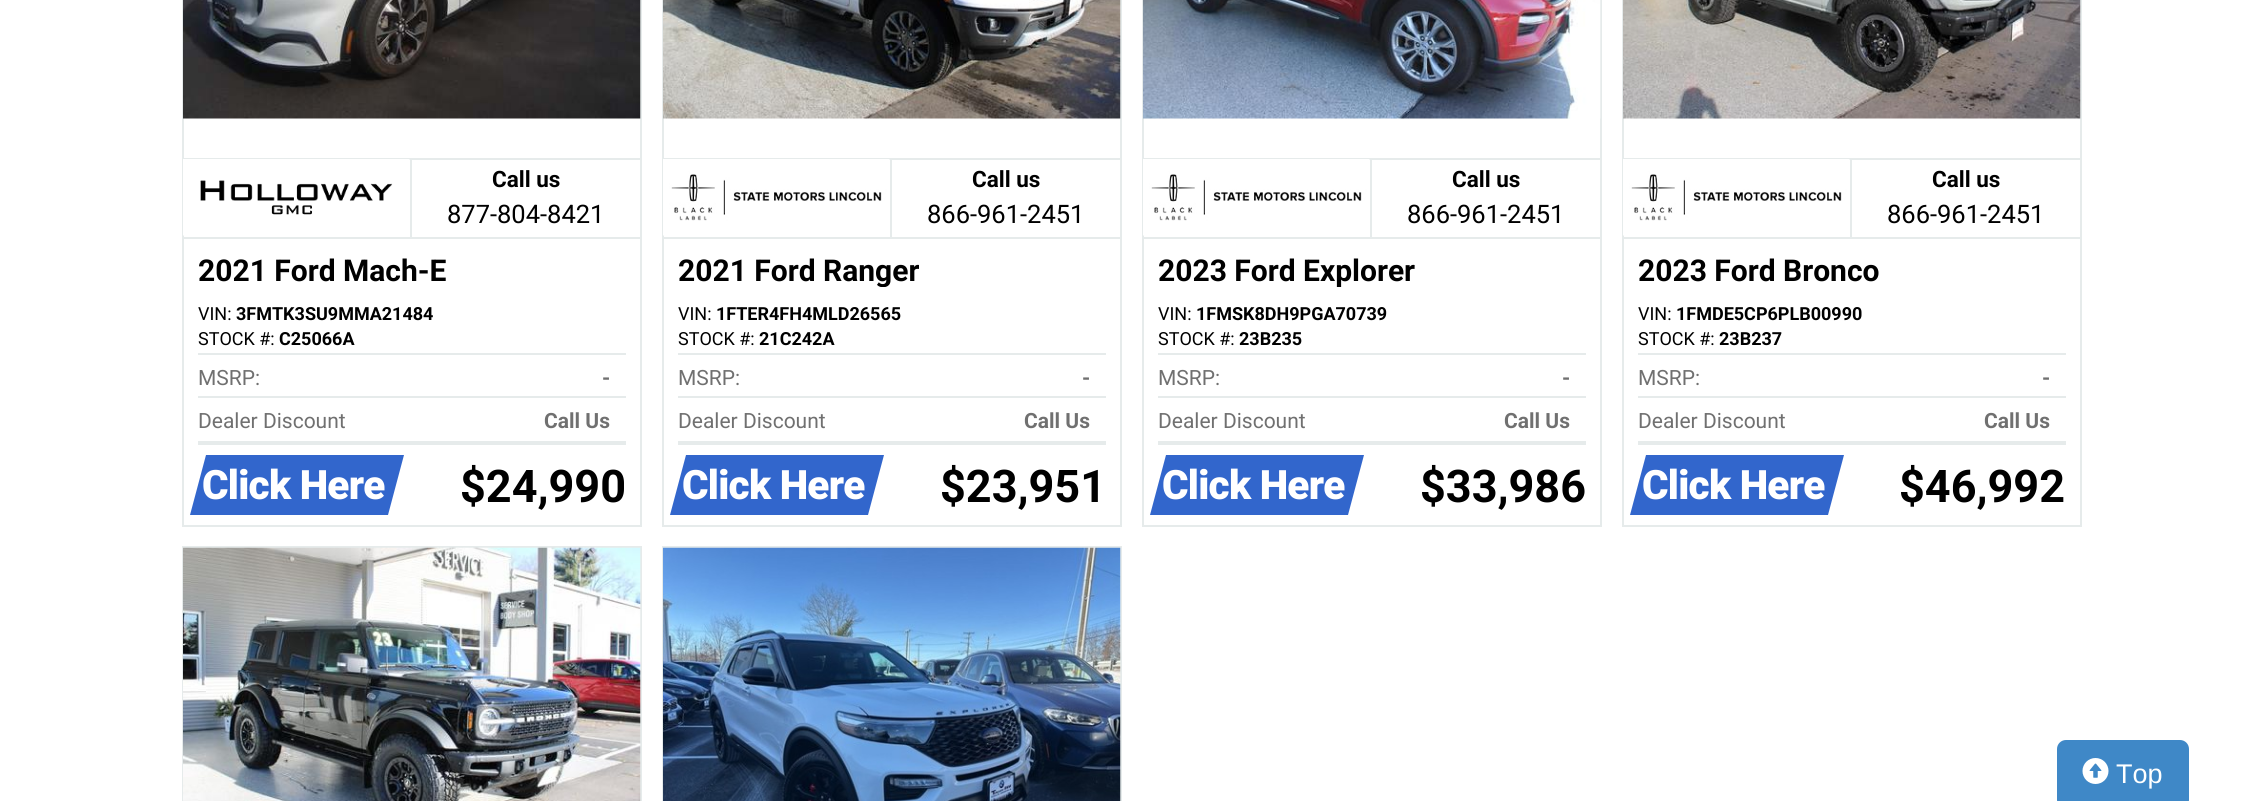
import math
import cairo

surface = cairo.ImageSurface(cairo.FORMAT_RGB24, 2263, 801)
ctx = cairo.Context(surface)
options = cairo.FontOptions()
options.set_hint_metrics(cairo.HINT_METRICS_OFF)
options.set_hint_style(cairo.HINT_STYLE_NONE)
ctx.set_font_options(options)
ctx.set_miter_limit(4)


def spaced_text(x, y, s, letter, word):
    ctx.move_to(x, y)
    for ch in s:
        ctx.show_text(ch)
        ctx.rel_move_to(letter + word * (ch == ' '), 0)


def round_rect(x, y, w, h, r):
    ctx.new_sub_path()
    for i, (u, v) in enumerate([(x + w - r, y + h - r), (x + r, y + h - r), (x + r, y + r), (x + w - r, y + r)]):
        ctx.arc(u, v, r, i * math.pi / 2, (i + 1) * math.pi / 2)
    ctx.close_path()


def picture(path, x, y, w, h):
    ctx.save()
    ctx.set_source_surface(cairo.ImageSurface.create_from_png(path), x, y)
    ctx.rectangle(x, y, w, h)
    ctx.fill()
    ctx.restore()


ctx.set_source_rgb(1, 1, 1)
ctx.paint()
ctx.rectangle(183, -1, 458, 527)
ctx.set_source_rgb(0.902, 0.918, 0.918)
ctx.stroke()
picture("img1.png", 183, 0, 458, 119)
ctx.rectangle(183, 158, 228, 2)
ctx.fill()
ctx.rectangle(410, 158, 2, 81)
ctx.fill()
ctx.rectangle(183, 237, 458, 2)
ctx.fill()
picture("img2.png", 183, 159, 227, 77)
ctx.rectangle(411, 158, 230, 2)
ctx.fill()
ctx.select_font_face("Roboto", cairo.FONT_SLANT_NORMAL, cairo.FONT_WEIGHT_BOLD)
ctx.set_font_size(22.5)
ctx.set_source_rgb(0, 0, 0)
ctx.move_to(492, 187)
ctx.show_text("Call us")
ctx.select_font_face("Roboto")
ctx.set_font_size(25.5)
ctx.move_to(447, 223)
ctx.show_text("877-804-8421")
ctx.select_font_face("Roboto", cairo.FONT_SLANT_NORMAL, cairo.FONT_WEIGHT_BOLD)
ctx.set_font_size(30)
ctx.move_to(198, 281)
ctx.show_text("2021 Ford Mach-E")
ctx.select_font_face("Roboto")
ctx.set_font_size(18)
ctx.move_to(198, 320)
ctx.show_text("VIN:")
ctx.select_font_face("Roboto", cairo.FONT_SLANT_NORMAL, cairo.FONT_WEIGHT_BOLD)
ctx.move_to(236, 320)
ctx.show_text("3FMTK3SU9MMA21484")
ctx.select_font_face("Roboto")
ctx.move_to(198, 345)
ctx.show_text("STOCK #:")
ctx.select_font_face("Roboto", cairo.FONT_SLANT_NORMAL, cairo.FONT_WEIGHT_BOLD)
ctx.move_to(279, 345)
ctx.show_text("C25066A")
ctx.set_source_rgb(0.902, 0.918, 0.918)
ctx.rectangle(198, 353, 428, 2)
ctx.fill()
ctx.rectangle(198, 396, 428, 2)
ctx.fill()
ctx.select_font_face("Roboto")
ctx.set_font_size(21)
ctx.set_source_rgb(0.439, 0.439, 0.439)
ctx.move_to(198, 385)
ctx.show_text("MSRP:")
ctx.select_font_face("Roboto", cairo.FONT_SLANT_NORMAL, cairo.FONT_WEIGHT_BOLD)
ctx.move_to(602, 385)
ctx.show_text("-")
ctx.set_source_rgb(0.902, 0.918, 0.918)
ctx.rectangle(198, 441, 428, 4)
ctx.fill()
ctx.select_font_face("Roboto")
ctx.set_source_rgb(0.439, 0.439, 0.439)
ctx.move_to(198, 428)
ctx.show_text("Dealer Discount")
ctx.select_font_face("Roboto", cairo.FONT_SLANT_NORMAL, cairo.FONT_WEIGHT_BOLD)
ctx.move_to(544, 428)
ctx.show_text("Call Us")
ctx.set_source_rgb(0.196, 0.4, 0.8)
ctx.new_path()
ctx.move_to(206, 455)
ctx.line_to(404, 455)
ctx.line_to(388, 515)
ctx.line_to(190, 515)
ctx.close_path()
ctx.fill()
ctx.select_font_face("Roboto Black")
ctx.set_font_size(40.5)
ctx.set_source_rgb(1, 1, 1)
spaced_text(202, 499, "Click Here", -0.75, 0)
ctx.select_font_face("Roboto", cairo.FONT_SLANT_NORMAL, cairo.FONT_WEIGHT_BOLD)
ctx.set_font_size(45)
ctx.set_source_rgb(0, 0, 0)
ctx.move_to(460, 502)
ctx.show_text("$24,990")
ctx.rectangle(663, -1, 458, 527)
ctx.set_source_rgb(0.902, 0.918, 0.918)
ctx.stroke()
picture("img3.png", 663, 0, 458, 119)
ctx.rectangle(663, 158, 228, 2)
ctx.fill()
ctx.rectangle(890, 158, 2, 81)
ctx.fill()
ctx.rectangle(663, 237, 458, 2)
ctx.fill()
picture("img4.png", 663, 159, 227, 77)
ctx.rectangle(891, 158, 230, 2)
ctx.fill()
ctx.set_font_size(22.5)
ctx.set_source_rgb(0, 0, 0)
ctx.move_to(972, 187)
ctx.show_text("Call us")
ctx.select_font_face("Roboto")
ctx.set_font_size(25.5)
ctx.move_to(927, 223)
ctx.show_text("866-961-2451")
ctx.save()
ctx.rectangle(678, 254, 242, 33)
ctx.clip()
ctx.select_font_face("Roboto", cairo.FONT_SLANT_NORMAL, cairo.FONT_WEIGHT_BOLD)
ctx.set_font_size(30)
ctx.move_to(678, 281)
ctx.show_text("2021 Ford Ranger")
ctx.restore()
ctx.set_font_size(18)
ctx.move_to(678, 320)
ctx.show_text("VIN:")
ctx.select_font_face("Roboto", cairo.FONT_SLANT_NORMAL, cairo.FONT_WEIGHT_BOLD)
ctx.move_to(716, 320)
ctx.show_text("1FTER4FH4MLD26565")
ctx.select_font_face("Roboto")
ctx.move_to(678, 345)
ctx.show_text("STOCK #:")
ctx.select_font_face("Roboto", cairo.FONT_SLANT_NORMAL, cairo.FONT_WEIGHT_BOLD)
ctx.move_to(759, 345)
ctx.show_text("21C242A")
ctx.set_source_rgb(0.902, 0.918, 0.918)
ctx.rectangle(678, 353, 428, 2)
ctx.fill()
ctx.rectangle(678, 396, 428, 2)
ctx.fill()
ctx.select_font_face("Roboto")
ctx.set_font_size(21)
ctx.set_source_rgb(0.439, 0.439, 0.439)
ctx.move_to(678, 385)
ctx.show_text("MSRP:")
ctx.select_font_face("Roboto", cairo.FONT_SLANT_NORMAL, cairo.FONT_WEIGHT_BOLD)
ctx.move_to(1082, 385)
ctx.show_text("-")
ctx.set_source_rgb(0.902, 0.918, 0.918)
ctx.rectangle(678, 441, 428, 4)
ctx.fill()
ctx.select_font_face("Roboto")
ctx.set_source_rgb(0.439, 0.439, 0.439)
ctx.move_to(678, 428)
ctx.show_text("Dealer Discount")
ctx.select_font_face("Roboto", cairo.FONT_SLANT_NORMAL, cairo.FONT_WEIGHT_BOLD)
ctx.move_to(1024, 428)
ctx.show_text("Call Us")
ctx.set_source_rgb(0.196, 0.4, 0.8)
ctx.new_path()
ctx.move_to(686, 455)
ctx.line_to(884, 455)
ctx.line_to(868, 515)
ctx.line_to(670, 515)
ctx.close_path()
ctx.fill()
ctx.select_font_face("Roboto Black")
ctx.set_font_size(40.5)
ctx.set_source_rgb(1, 1, 1)
spaced_text(682, 499, "Click Here", -0.75, 0)
ctx.select_font_face("Roboto", cairo.FONT_SLANT_NORMAL, cairo.FONT_WEIGHT_BOLD)
ctx.set_font_size(45)
ctx.set_source_rgb(0, 0, 0)
ctx.move_to(940, 502)
ctx.show_text("$23,951")
ctx.rectangle(1143, -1, 458, 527)
ctx.set_source_rgb(0.902, 0.918, 0.918)
ctx.stroke()
picture("img5.png", 1143, 0, 458, 119)
ctx.rectangle(1143, 158, 228, 2)
ctx.fill()
ctx.rectangle(1370, 158, 2, 81)
ctx.fill()
ctx.rectangle(1143, 237, 458, 2)
ctx.fill()
picture("img6.png", 1143, 159, 227, 77)
ctx.rectangle(1371, 158, 230, 2)
ctx.fill()
ctx.set_font_size(22.5)
ctx.set_source_rgb(0, 0, 0)
ctx.move_to(1452, 187)
ctx.show_text("Call us")
ctx.select_font_face("Roboto")
ctx.set_font_size(25.5)
ctx.move_to(1407, 223)
ctx.show_text("866-961-2451")
ctx.save()
ctx.rectangle(1158, 254, 257, 33)
ctx.clip()
ctx.select_font_face("Roboto", cairo.FONT_SLANT_NORMAL, cairo.FONT_WEIGHT_BOLD)
ctx.set_font_size(30)
ctx.move_to(1158, 281)
ctx.show_text("2023 Ford Explorer")
ctx.restore()
ctx.set_font_size(18)
ctx.move_to(1158, 320)
ctx.show_text("VIN:")
ctx.select_font_face("Roboto", cairo.FONT_SLANT_NORMAL, cairo.FONT_WEIGHT_BOLD)
ctx.move_to(1196, 320)
ctx.show_text("1FMSK8DH9PGA70739")
ctx.select_font_face("Roboto")
ctx.move_to(1158, 345)
ctx.show_text("STOCK #:")
ctx.select_font_face("Roboto", cairo.FONT_SLANT_NORMAL, cairo.FONT_WEIGHT_BOLD)
ctx.move_to(1239, 345)
ctx.show_text("23B235")
ctx.set_source_rgb(0.902, 0.918, 0.918)
ctx.rectangle(1158, 353, 428, 2)
ctx.fill()
ctx.rectangle(1158, 396, 428, 2)
ctx.fill()
ctx.select_font_face("Roboto")
ctx.set_font_size(21)
ctx.set_source_rgb(0.439, 0.439, 0.439)
ctx.move_to(1158, 385)
ctx.show_text("MSRP:")
ctx.select_font_face("Roboto", cairo.FONT_SLANT_NORMAL, cairo.FONT_WEIGHT_BOLD)
ctx.move_to(1562, 385)
ctx.show_text("-")
ctx.set_source_rgb(0.902, 0.918, 0.918)
ctx.rectangle(1158, 441, 428, 4)
ctx.fill()
ctx.select_font_face("Roboto")
ctx.set_source_rgb(0.439, 0.439, 0.439)
ctx.move_to(1158, 428)
ctx.show_text("Dealer Discount")
ctx.select_font_face("Roboto", cairo.FONT_SLANT_NORMAL, cairo.FONT_WEIGHT_BOLD)
ctx.move_to(1504, 428)
ctx.show_text("Call Us")
ctx.set_source_rgb(0.196, 0.4, 0.8)
ctx.new_path()
ctx.move_to(1166, 455)
ctx.line_to(1364, 455)
ctx.line_to(1348, 515)
ctx.line_to(1150, 515)
ctx.close_path()
ctx.fill()
ctx.select_font_face("Roboto Black")
ctx.set_font_size(40.5)
ctx.set_source_rgb(1, 1, 1)
spaced_text(1162, 499, "Click Here", -0.75, 0)
ctx.select_font_face("Roboto", cairo.FONT_SLANT_NORMAL, cairo.FONT_WEIGHT_BOLD)
ctx.set_font_size(45)
ctx.set_source_rgb(0, 0, 0)
ctx.move_to(1420, 502)
ctx.show_text("$33,986")
ctx.rectangle(1623, -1, 458, 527)
ctx.set_source_rgb(0.902, 0.918, 0.918)
ctx.stroke()
picture("img7.png", 1623, 0, 458, 119)
ctx.rectangle(1623, 158, 228, 2)
ctx.fill()
ctx.rectangle(1850, 158, 2, 81)
ctx.fill()
ctx.rectangle(1623, 237, 458, 2)
ctx.fill()
picture("img6.png", 1623, 159, 227, 77)
ctx.rectangle(1851, 158, 230, 2)
ctx.fill()
ctx.set_font_size(22.5)
ctx.set_source_rgb(0, 0, 0)
ctx.move_to(1932, 187)
ctx.show_text("Call us")
ctx.select_font_face("Roboto")
ctx.set_font_size(25.5)
ctx.move_to(1887, 223)
ctx.show_text("866-961-2451")
ctx.select_font_face("Roboto", cairo.FONT_SLANT_NORMAL, cairo.FONT_WEIGHT_BOLD)
ctx.set_font_size(30)
ctx.move_to(1638, 281)
ctx.show_text("2023 Ford Bronco")
ctx.select_font_face("Roboto")
ctx.set_font_size(18)
ctx.move_to(1638, 320)
ctx.show_text("VIN:")
ctx.select_font_face("Roboto", cairo.FONT_SLANT_NORMAL, cairo.FONT_WEIGHT_BOLD)
ctx.move_to(1676, 320)
ctx.show_text("1FMDE5CP6PLB00990")
ctx.select_font_face("Roboto")
ctx.move_to(1638, 345)
ctx.show_text("STOCK #:")
ctx.select_font_face("Roboto", cairo.FONT_SLANT_NORMAL, cairo.FONT_WEIGHT_BOLD)
ctx.move_to(1719, 345)
ctx.show_text("23B237")
ctx.set_source_rgb(0.902, 0.918, 0.918)
ctx.rectangle(1638, 353, 428, 2)
ctx.fill()
ctx.rectangle(1638, 396, 428, 2)
ctx.fill()
ctx.select_font_face("Roboto")
ctx.set_font_size(21)
ctx.set_source_rgb(0.439, 0.439, 0.439)
ctx.move_to(1638, 385)
ctx.show_text("MSRP:")
ctx.select_font_face("Roboto", cairo.FONT_SLANT_NORMAL, cairo.FONT_WEIGHT_BOLD)
ctx.move_to(2042, 385)
ctx.show_text("-")
ctx.set_source_rgb(0.902, 0.918, 0.918)
ctx.rectangle(1638, 441, 428, 4)
ctx.fill()
ctx.select_font_face("Roboto")
ctx.set_source_rgb(0.439, 0.439, 0.439)
ctx.move_to(1638, 428)
ctx.show_text("Dealer Discount")
ctx.select_font_face("Roboto", cairo.FONT_SLANT_NORMAL, cairo.FONT_WEIGHT_BOLD)
ctx.move_to(1984, 428)
ctx.show_text("Call Us")
ctx.set_source_rgb(0.196, 0.4, 0.8)
ctx.new_path()
ctx.move_to(1646, 455)
ctx.line_to(1844, 455)
ctx.line_to(1828, 515)
ctx.line_to(1630, 515)
ctx.close_path()
ctx.fill()
ctx.select_font_face("Roboto Black")
ctx.set_font_size(40.5)
ctx.set_source_rgb(1, 1, 1)
spaced_text(1642, 499, "Click Here", -0.75, 0)
ctx.select_font_face("Roboto", cairo.FONT_SLANT_NORMAL, cairo.FONT_WEIGHT_BOLD)
ctx.set_font_size(45)
ctx.set_source_rgb(0, 0, 0)
ctx.move_to(1899, 502)
ctx.show_text("$46,992")
ctx.rectangle(183, 547, 458, 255)
ctx.set_source_rgb(0.902, 0.918, 0.918)
ctx.stroke()
picture("img8.png", 183, 547, 458, 254)
ctx.rectangle(663, 547, 458, 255)
ctx.stroke()
picture("img9.png", 663, 547, 458, 254)
ctx.set_source_rgb(0.247, 0.533, 0.78)
round_rect(2058, 741, 130, 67, 8)
ctx.fill_preserve()
ctx.stroke()
picture("img10.png", 2082, 758, 27, 26)
ctx.select_font_face("Liberation Sans")
ctx.set_font_size(27)
ctx.set_source_rgb(1, 1, 1)
ctx.move_to(2116, 783)
ctx.show_text("Top")
surface.write_to_png("page.png")
